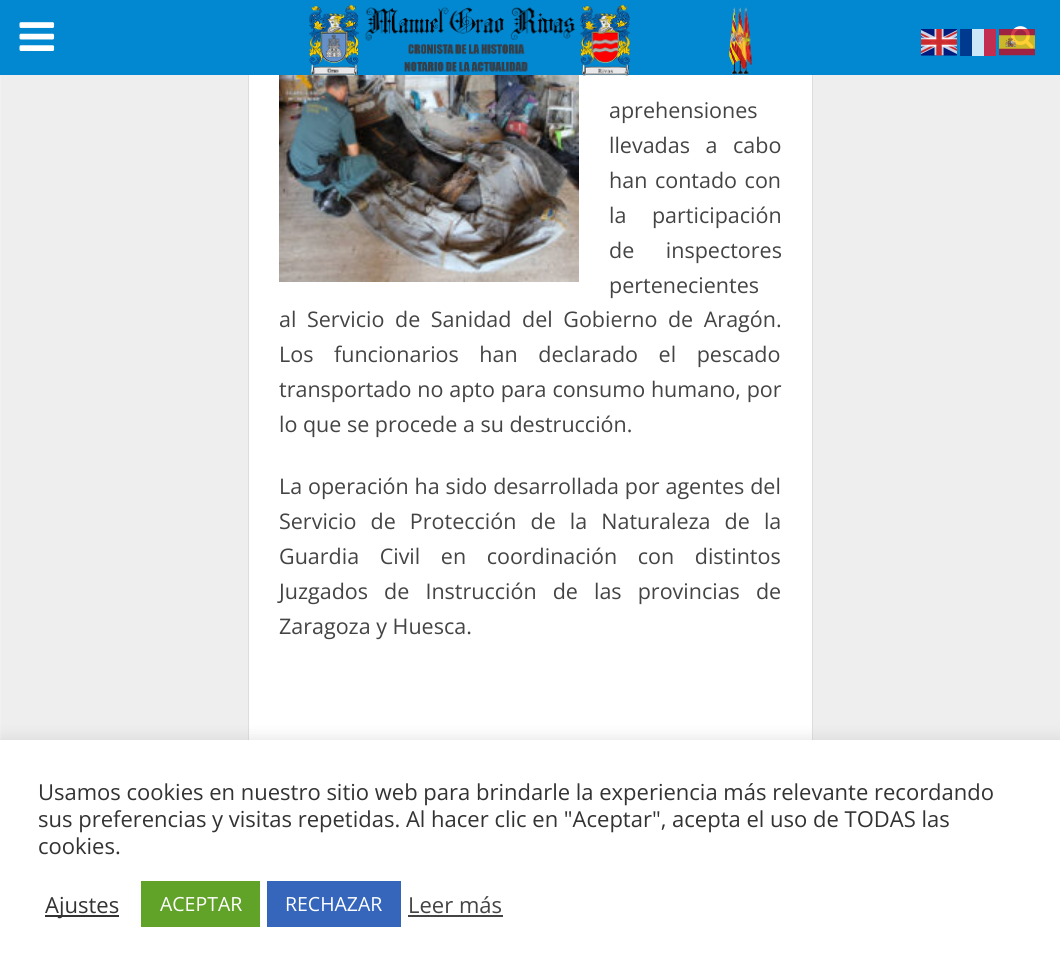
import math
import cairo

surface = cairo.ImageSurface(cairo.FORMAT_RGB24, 1060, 972)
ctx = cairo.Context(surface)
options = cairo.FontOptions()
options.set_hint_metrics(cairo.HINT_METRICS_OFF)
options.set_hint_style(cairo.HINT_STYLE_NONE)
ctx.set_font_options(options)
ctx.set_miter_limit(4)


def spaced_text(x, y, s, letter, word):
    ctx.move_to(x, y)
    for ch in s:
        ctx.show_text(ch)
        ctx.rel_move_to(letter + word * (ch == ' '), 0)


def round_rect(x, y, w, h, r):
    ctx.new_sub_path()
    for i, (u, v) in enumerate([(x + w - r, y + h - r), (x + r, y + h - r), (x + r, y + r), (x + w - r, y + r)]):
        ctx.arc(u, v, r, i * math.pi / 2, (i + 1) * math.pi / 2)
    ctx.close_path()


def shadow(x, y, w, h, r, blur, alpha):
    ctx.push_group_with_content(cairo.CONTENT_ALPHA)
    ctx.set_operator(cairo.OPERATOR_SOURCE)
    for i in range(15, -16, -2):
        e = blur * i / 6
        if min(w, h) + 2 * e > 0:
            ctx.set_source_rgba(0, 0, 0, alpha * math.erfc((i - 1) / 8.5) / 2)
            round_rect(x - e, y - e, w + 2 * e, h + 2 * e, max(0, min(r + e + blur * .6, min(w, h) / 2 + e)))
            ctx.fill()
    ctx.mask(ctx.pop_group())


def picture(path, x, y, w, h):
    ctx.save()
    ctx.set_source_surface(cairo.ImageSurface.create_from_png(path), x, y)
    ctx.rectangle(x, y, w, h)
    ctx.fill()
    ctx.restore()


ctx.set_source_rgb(0.933, 0.933, 0.933)
ctx.paint()
ctx.rectangle(249, -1, 563, 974)
ctx.set_source_rgb(0.867, 0.867, 0.867)
ctx.stroke()
ctx.set_source_rgb(0.008, 0.533, 0.82)
ctx.rectangle(0, 0, 1060, 75)
ctx.fill()
picture("img1.png", 19, 22, 36, 29)
ctx.set_source_rgb(1, 1, 1)
ctx.rectangle(249, 75, 563, 665)
ctx.fill()
picture("img6.png", 279, 75, 300, 207)
picture("img2.png", 308, 4, 445, 72)
picture("img3.png", 1011, 26, 23, 23)
picture("img4.png", 921, 29, 36, 27)
ctx.set_source_rgb(0, 0.227, 0.561)
ctx.rectangle(960, 29, 12, 27)
ctx.fill()
ctx.set_source_rgb(0.8, 0.906, 0.965)
ctx.rectangle(972, 29, 12, 27)
ctx.fill()
ctx.set_source_rgb(0.765, 0.18, 0.314)
ctx.rectangle(984, 29, 12, 27)
ctx.fill()
picture("img5.png", 999, 29, 36, 27)
ctx.set_source_rgb(0.945, 0.945, 0.945)
ctx.rectangle(0, 75, 1, 665)
ctx.fill()
ctx.select_font_face("Open Sans")
ctx.set_font_size(21.5)
ctx.set_source_rgb(0.267, 0.267, 0.267)
ctx.move_to(609, 118)
ctx.show_text("aprehensiones")
spaced_text(609, 153, "llevadas a cabo", 0, 10)
spaced_text(609, 188, "han contado con", 0, 2)
spaced_text(609, 223, "la participación", 0, 20)
spaced_text(609, 258, "de inspectores", 0, 26)
ctx.move_to(609, 293)
ctx.show_text("pertenecientes")
spaced_text(279, 327, "al Servicio de Sanidad del Gobierno de Aragón.", 0, 5)
spaced_text(279, 362, "Los funcionarios han declarado el pescado", 0, 15)
spaced_text(279, 397, "transportado no apto para consumo humano, por", 0, 0.25)
ctx.move_to(279, 432)
ctx.show_text("lo que se procede a su destrucción.")
spaced_text(279, 494, "La operación ha sido desarrollada por agentes del", 0, 0.25)
spaced_text(279, 529, "Servicio de Protección de la Naturaleza de la", 0, 8.5)
spaced_text(279, 564, "Guardia Civil en coordinación con distintos", 0, 15)
spaced_text(279, 599, "Juzgados de Instrucción de las provincias de", 0, 10.5)
ctx.move_to(279, 634)
ctx.show_text("Zaragoza y Huesca.")
ctx.set_source_rgb(0.675, 0.671, 0.671)
shadow(0, 738, 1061, 233, 0, 7.5, 0.3)
ctx.set_source_rgb(1, 1, 1)
ctx.rectangle(0, 740, 1060, 232)
ctx.fill()
ctx.set_font_size(22)
ctx.set_source_rgb(0.2, 0.2, 0.2)
ctx.move_to(38, 800)
ctx.show_text("Usamos cookies en nuestro sitio web para brindarle la experiencia más relevante recordando")
ctx.move_to(38, 827)
ctx.show_text("sus preferencias y visitas repetidas. Al hacer clic en \"Aceptar\", acepta el uso de TODAS las")
ctx.move_to(38, 854)
ctx.show_text("cookies.")
ctx.rectangle(45, 915, 74, 2)
ctx.fill()
ctx.move_to(45, 913)
ctx.show_text("Ajustes")
ctx.set_source_rgb(0.38, 0.635, 0.161)
ctx.rectangle(141, 881, 119, 46)
ctx.fill()
ctx.set_font_size(19.5)
ctx.set_source_rgb(1, 1, 1)
ctx.move_to(160, 911)
ctx.show_text("ACEPTAR")
ctx.set_source_rgb(0.208, 0.4, 0.733)
ctx.rectangle(267, 881, 134, 46)
ctx.fill()
ctx.set_source_rgb(1, 1, 1)
ctx.move_to(285, 911)
ctx.show_text("RECHAZAR")
ctx.set_font_size(22)
ctx.set_source_rgb(0.267, 0.267, 0.267)
ctx.move_to(408, 913)
ctx.show_text("Leer más")
ctx.rectangle(408, 915, 95, 2)
ctx.fill()
surface.write_to_png("page.png")
